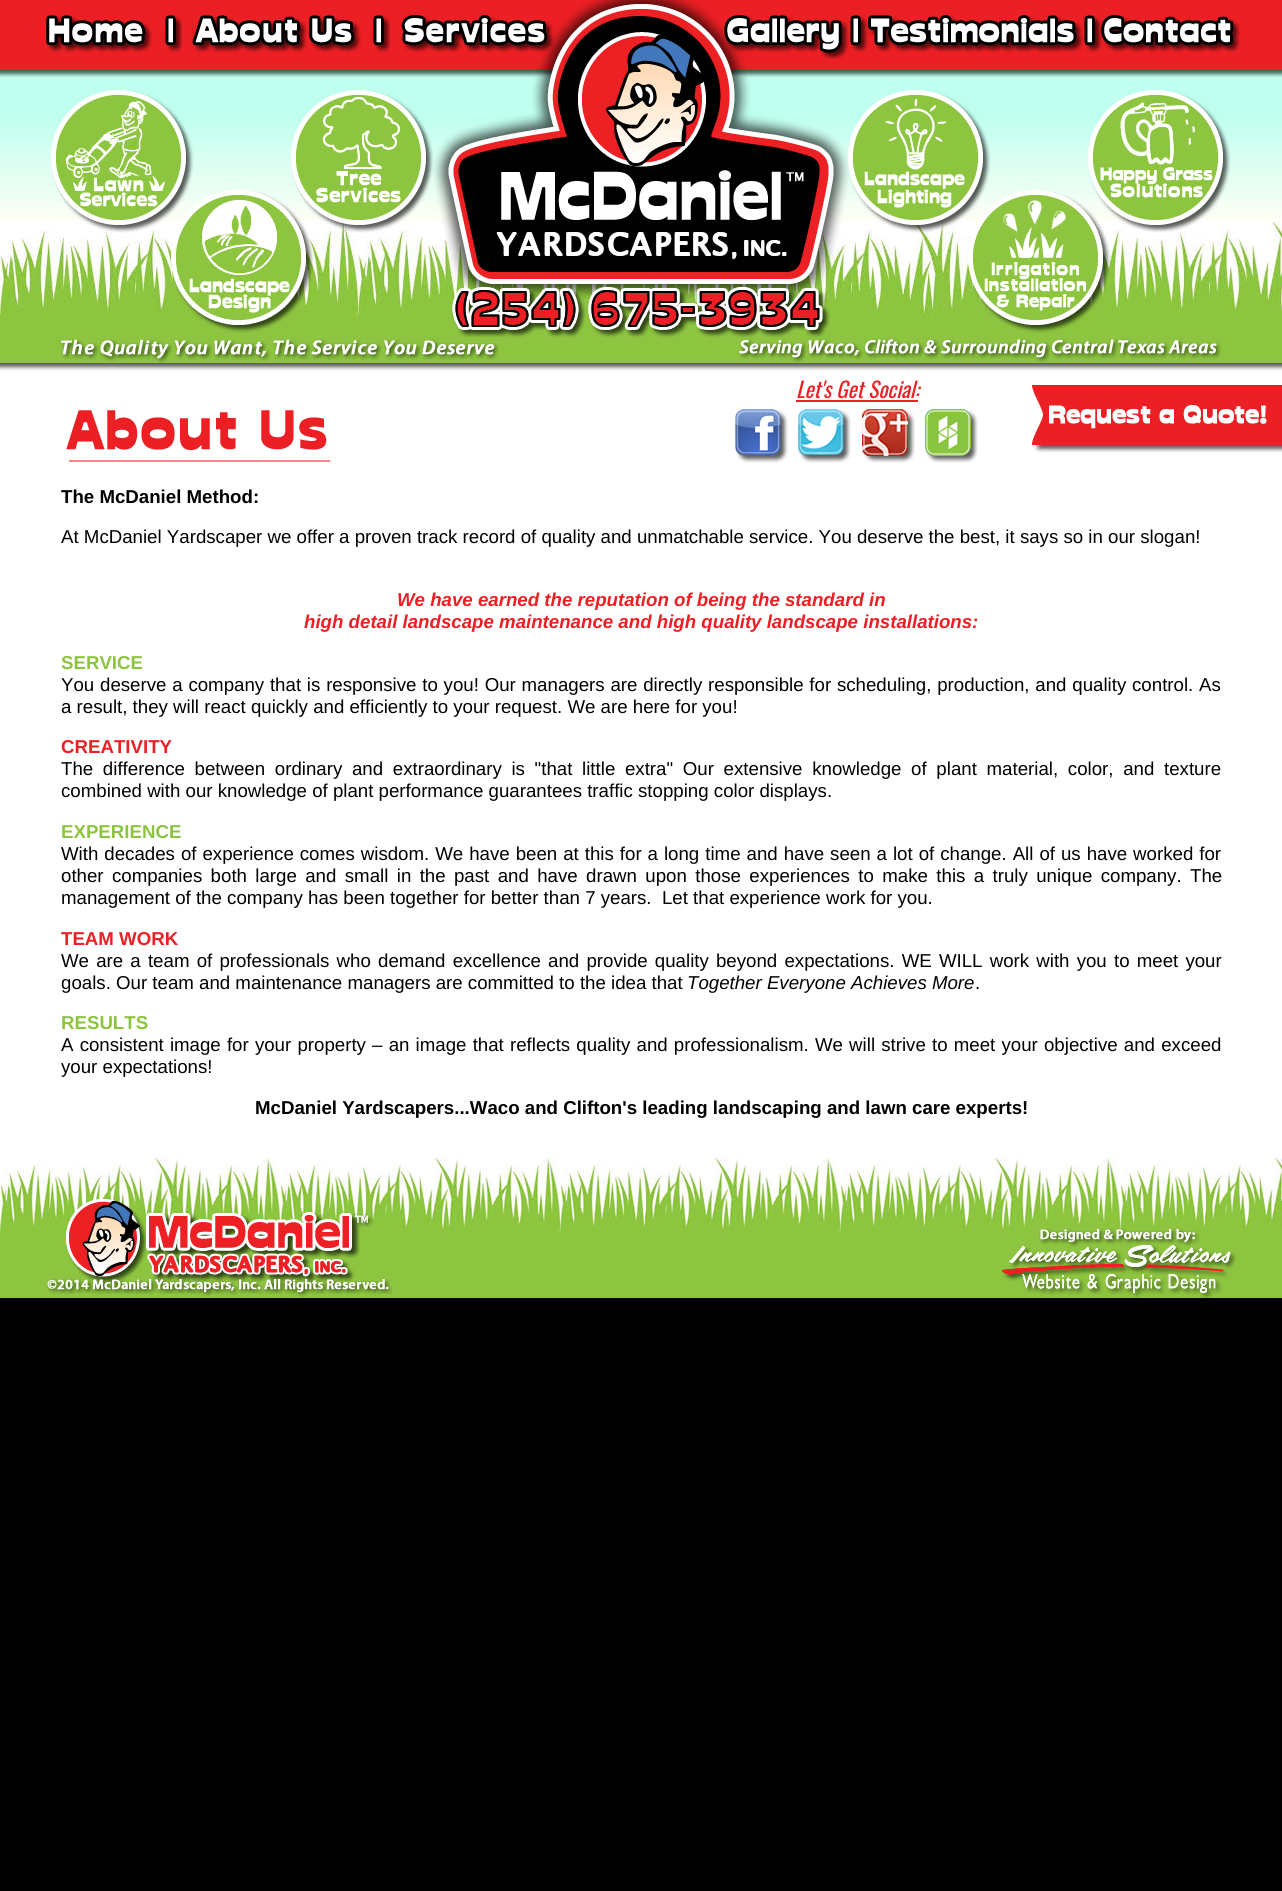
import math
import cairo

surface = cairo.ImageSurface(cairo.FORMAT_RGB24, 1282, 1891)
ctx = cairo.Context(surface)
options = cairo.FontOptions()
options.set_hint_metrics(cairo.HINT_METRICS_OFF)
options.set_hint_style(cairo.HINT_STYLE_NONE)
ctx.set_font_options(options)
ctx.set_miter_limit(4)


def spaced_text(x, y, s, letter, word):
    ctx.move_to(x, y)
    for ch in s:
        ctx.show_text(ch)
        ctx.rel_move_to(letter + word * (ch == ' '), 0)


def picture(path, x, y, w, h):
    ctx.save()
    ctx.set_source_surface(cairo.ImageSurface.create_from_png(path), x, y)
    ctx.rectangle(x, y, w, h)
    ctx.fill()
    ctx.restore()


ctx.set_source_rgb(0, 0, 0)
ctx.paint()
picture("img1.png", 0, 0, 1282, 363)
picture("img2.png", 46, 15, 107, 38)
picture("img3.png", 163, 15, 19, 38)
picture("img4.png", 192, 15, 169, 38)
picture("img3.png", 371, 15, 19, 38)
picture("img10.png", 51, 90, 143, 143)
picture("img14.png", 171, 190, 143, 143)
picture("img11.png", 291, 90, 143, 143)
picture("img12.png", 848, 90, 143, 143)
picture("img6.png", 433, 0, 416, 299)
picture("img5.png", 400, 15, 155, 38)
picture("img7.png", 724, 15, 124, 44)
picture("img3.png", 848, 15, 19, 38)
picture("img8.png", 867, 15, 215, 38)
picture("img3.png", 1082, 15, 19, 38)
picture("img9.png", 1101, 15, 140, 38)
picture("img16.png", 968, 190, 143, 143)
picture("img13.png", 1088, 90, 143, 143)
picture("img15.png", 452, 287, 378, 51)
picture("img17.png", 61, 339, 438, 24)
picture("img18.png", 739, 338, 482, 25)
ctx.set_source_rgb(1, 1, 1)
ctx.rectangle(0, 363, 1282, 795)
ctx.fill()
picture("img19.png", 0, 363, 1282, 8)
ctx.select_font_face("Oswald", cairo.FONT_SLANT_ITALIC)
ctx.set_font_size(21.5)
ctx.set_source_rgb(0.922, 0.122, 0.141)
ctx.move_to(796, 398)
ctx.show_text("Let's Get Social:")
ctx.set_source_rgb(0.929, 0.125, 0.141)
ctx.rectangle(796, 400, 122, 2)
ctx.fill()
picture("img20.png", 735, 409, 53, 54)
picture("img21.png", 797, 409, 54, 54)
picture("img22.png", 862, 409, 53, 54)
picture("img23.png", 924, 409, 54, 54)
picture("img24.png", 66, 410, 265, 52)
ctx.select_font_face("Liberation Sans", cairo.FONT_SLANT_NORMAL, cairo.FONT_WEIGHT_BOLD)
ctx.set_font_size(18.67)
ctx.set_source_rgb(0, 0, 0)
ctx.move_to(61, 503)
ctx.show_text("The McDaniel Method:")
ctx.select_font_face("Liberation Sans")
ctx.move_to(61, 543)
ctx.show_text("At McDaniel Yardscaper we offer a proven track record of quality and unmatchable service. You deserve the best, it says so in our slogan!")
ctx.select_font_face("Liberation Sans", cairo.FONT_SLANT_ITALIC, cairo.FONT_WEIGHT_BOLD)
ctx.set_source_rgb(0.922, 0.122, 0.141)
ctx.move_to(397, 606)
ctx.show_text("We have earned the reputation of being the standard in")
ctx.move_to(304, 628)
ctx.show_text("high detail landscape maintenance and high quality landscape installations:")
ctx.select_font_face("Liberation Sans", cairo.FONT_SLANT_NORMAL, cairo.FONT_WEIGHT_BOLD)
ctx.set_source_rgb(0.549, 0.769, 0.247)
ctx.move_to(61, 669)
ctx.show_text("SERVICE")
ctx.select_font_face("Liberation Sans")
ctx.set_source_rgb(0, 0, 0)
spaced_text(61, 691, "You deserve a company that is responsive to you! Our managers are directly responsible for scheduling, production, and quality control. As", 0, 0.6)
ctx.move_to(61, 713)
ctx.show_text("a result, they will react quickly and efficiently to your request. We are here for you!")
ctx.select_font_face("Liberation Sans", cairo.FONT_SLANT_NORMAL, cairo.FONT_WEIGHT_BOLD)
ctx.set_source_rgb(0.922, 0.122, 0.141)
ctx.move_to(61, 753)
ctx.show_text("CREATIVITY")
ctx.select_font_face("Liberation Sans")
ctx.set_source_rgb(0, 0, 0)
spaced_text(61, 775, "The difference between ordinary and extraordinary is \"that little extra\" Our extensive knowledge of plant material, color, and texture", 0, 4.5)
ctx.move_to(61, 797)
ctx.show_text("combined with our knowledge of plant performance guarantees traffic stopping color displays.")
ctx.select_font_face("Liberation Sans", cairo.FONT_SLANT_NORMAL, cairo.FONT_WEIGHT_BOLD)
ctx.set_source_rgb(0.549, 0.769, 0.247)
ctx.move_to(61, 838)
ctx.show_text("EXPERIENCE")
ctx.select_font_face("Liberation Sans")
ctx.set_source_rgb(0, 0, 0)
spaced_text(61, 860, "With decades of experience comes wisdom. We have been at this for a long time and have seen a lot of change. All of us have worked for", 0, 0.8)
spaced_text(61, 882, "other companies both large and small in the past and have drawn upon those experiences to make this a truly unique company. The", 0, 3.2)
ctx.move_to(61, 904)
ctx.show_text("management of the company has been together for better than 7 years.  Let that experience work for you.")
ctx.select_font_face("Liberation Sans", cairo.FONT_SLANT_NORMAL, cairo.FONT_WEIGHT_BOLD)
ctx.set_source_rgb(0.922, 0.122, 0.141)
ctx.move_to(61, 945)
ctx.show_text("TEAM WORK")
ctx.select_font_face("Liberation Sans")
ctx.set_source_rgb(0, 0, 0)
spaced_text(61, 967, "We are a team of professionals who demand excellence and provide quality beyond expectations. WE WILL work with you to meet your", 0, 2)
ctx.move_to(61, 989)
ctx.show_text("goals. Our team and maintenance managers are committed to the idea that")
ctx.select_font_face("Liberation Sans", cairo.FONT_SLANT_ITALIC)
ctx.move_to(687, 989)
ctx.show_text("Together Everyone Achieves More")
ctx.select_font_face("Liberation Sans")
ctx.move_to(975, 989)
ctx.show_text(".")
ctx.select_font_face("Liberation Sans", cairo.FONT_SLANT_NORMAL, cairo.FONT_WEIGHT_BOLD)
ctx.set_source_rgb(0.549, 0.769, 0.247)
ctx.move_to(61, 1029)
ctx.show_text("RESULTS")
ctx.select_font_face("Liberation Sans")
ctx.set_source_rgb(0, 0, 0)
spaced_text(61, 1051, "A consistent image for your property – an image that reflects quality and professionalism. We will strive to meet your objective and exceed", 0, 1)
ctx.move_to(61, 1073)
ctx.show_text("your expectations!")
ctx.select_font_face("Liberation Sans", cairo.FONT_SLANT_NORMAL, cairo.FONT_WEIGHT_BOLD)
ctx.move_to(255, 1114)
ctx.show_text("McDaniel Yardscapers...Waco and Clifton's leading landscaping and lawn care experts!")
picture("img25.png", 1032, 385, 250, 68)
ctx.set_source_rgb(0.553, 0.773, 0.251)
ctx.rectangle(0, 1269, 1282, 29)
ctx.fill()
picture("img26.png", 0, 1158, 1282, 111)
picture("img27.png", 47, 1198, 346, 99)
picture("img28.png", 1002, 1228, 234, 70)
surface.write_to_png("page.png")
